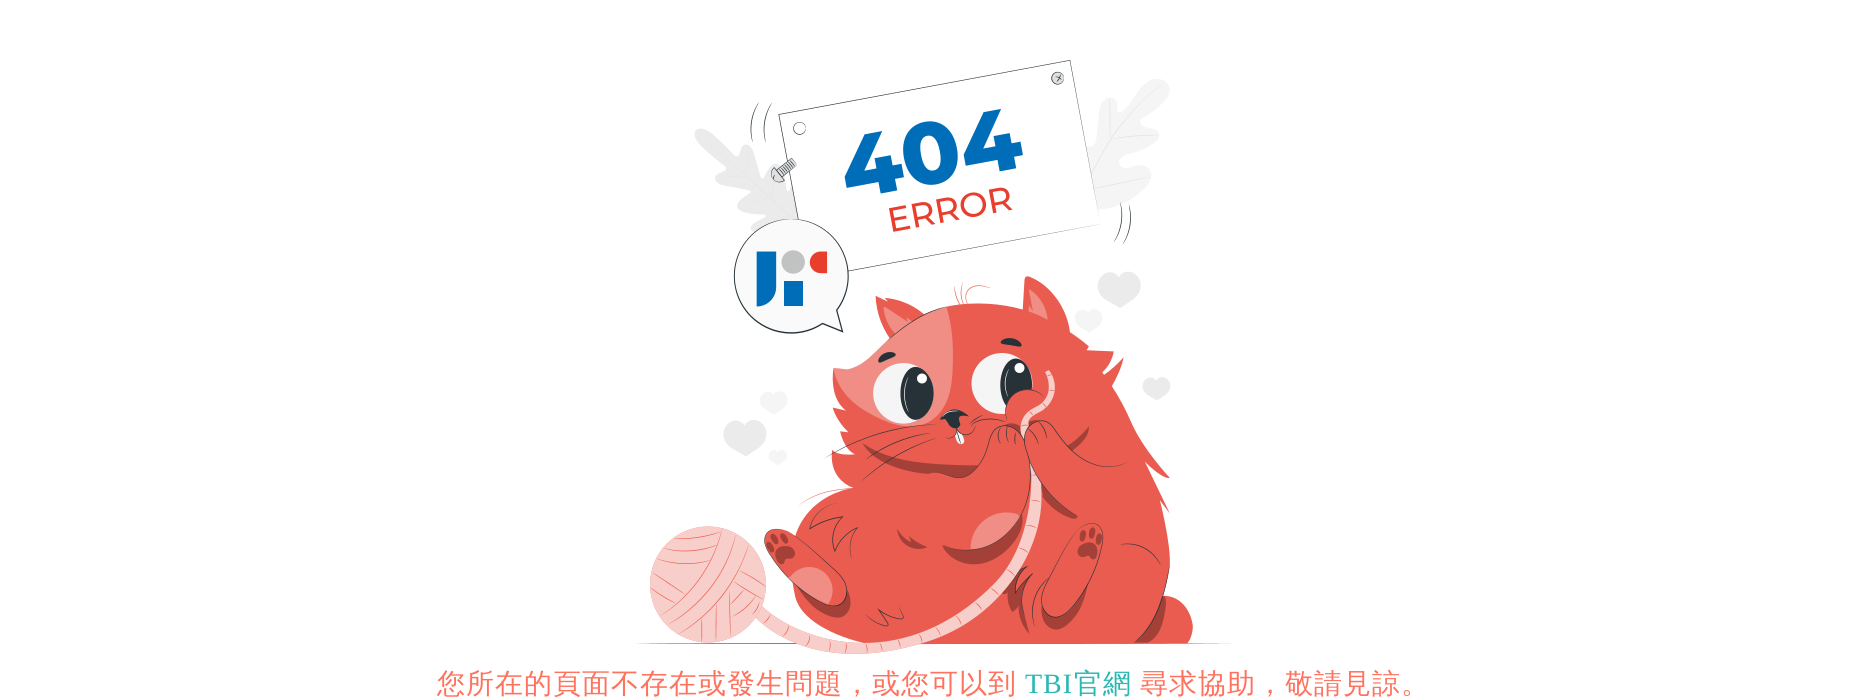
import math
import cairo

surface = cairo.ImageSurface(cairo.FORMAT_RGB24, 1867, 700)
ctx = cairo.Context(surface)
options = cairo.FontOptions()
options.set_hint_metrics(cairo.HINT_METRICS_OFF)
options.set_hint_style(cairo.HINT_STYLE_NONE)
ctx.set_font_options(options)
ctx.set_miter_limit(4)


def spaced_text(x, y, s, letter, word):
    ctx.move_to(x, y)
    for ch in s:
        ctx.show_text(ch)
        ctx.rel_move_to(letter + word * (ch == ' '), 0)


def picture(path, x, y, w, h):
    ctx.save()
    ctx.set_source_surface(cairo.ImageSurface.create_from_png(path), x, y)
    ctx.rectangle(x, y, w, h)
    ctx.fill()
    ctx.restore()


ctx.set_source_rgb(1, 1, 1)
ctx.paint()
picture("img1.png", 637, 60, 594, 594)
ctx.select_font_face("WenQuanYi Zen Hei Medium")
ctx.set_font_size(28)
ctx.set_source_rgb(1, 0.447, 0.369)
spaced_text(437, 693, "您所在的頁面不存在或發生問題，或您可以到", 1, 0)
ctx.select_font_face("Liberation Serif")
ctx.set_source_rgb(0.169, 0.718, 0.702)
spaced_text(1025, 693, "TBI", 1, 0)
ctx.select_font_face("WenQuanYi Zen Hei Medium")
spaced_text(1074, 693, "官網", 1, 0)
ctx.set_source_rgb(1, 0.447, 0.369)
spaced_text(1140, 693, "尋求協助，敬請見諒。", 1, 0)
surface.write_to_png("page.png")
